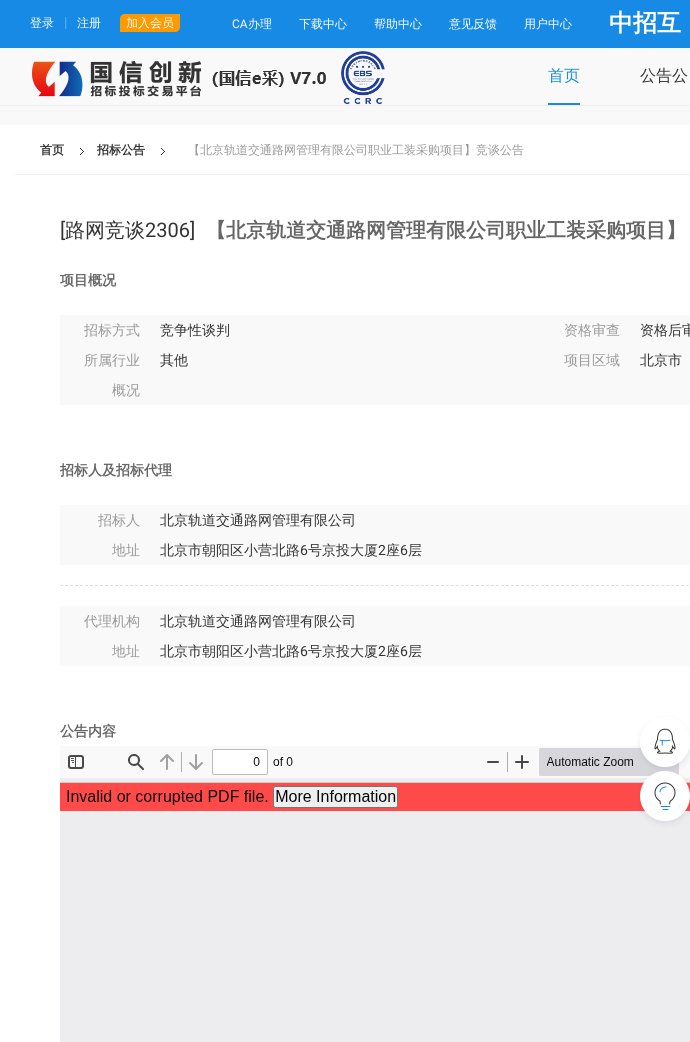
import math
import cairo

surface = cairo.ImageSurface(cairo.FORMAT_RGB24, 690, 1042)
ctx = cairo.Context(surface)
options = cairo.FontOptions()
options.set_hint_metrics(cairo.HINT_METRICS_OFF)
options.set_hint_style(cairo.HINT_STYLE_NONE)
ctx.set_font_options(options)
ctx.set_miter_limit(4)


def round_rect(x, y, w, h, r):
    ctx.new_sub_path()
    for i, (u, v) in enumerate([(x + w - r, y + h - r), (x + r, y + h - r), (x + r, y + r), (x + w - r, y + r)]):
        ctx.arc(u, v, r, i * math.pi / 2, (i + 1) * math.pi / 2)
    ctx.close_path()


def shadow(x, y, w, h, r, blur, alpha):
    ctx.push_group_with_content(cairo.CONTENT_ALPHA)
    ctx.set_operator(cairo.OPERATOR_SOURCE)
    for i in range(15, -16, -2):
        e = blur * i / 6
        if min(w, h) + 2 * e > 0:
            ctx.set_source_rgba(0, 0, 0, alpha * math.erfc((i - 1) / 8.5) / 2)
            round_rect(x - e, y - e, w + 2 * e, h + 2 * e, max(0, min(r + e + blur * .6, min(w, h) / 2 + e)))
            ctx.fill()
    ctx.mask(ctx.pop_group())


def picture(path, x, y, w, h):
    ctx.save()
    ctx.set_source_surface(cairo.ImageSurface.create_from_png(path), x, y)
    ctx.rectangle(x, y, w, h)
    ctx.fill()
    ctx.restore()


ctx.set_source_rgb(0.973, 0.976, 0.98)
ctx.paint()
ctx.set_source_rgb(0.09, 0.541, 0.902)
ctx.rectangle(0, 0, 690, 48)
ctx.fill()
ctx.select_font_face("WenQuanYi Zen Hei Medium")
ctx.set_font_size(12)
ctx.set_source_rgb(1, 1, 1)
ctx.move_to(30, 27)
ctx.show_text("登录")
ctx.select_font_face("Roboto")
ctx.set_font_size(14)
ctx.set_source_rgb(0.365, 0.678, 0.933)
ctx.move_to(64, 27)
ctx.show_text("|")
ctx.select_font_face("WenQuanYi Zen Hei Medium")
ctx.set_font_size(12)
ctx.set_source_rgb(1, 1, 1)
ctx.move_to(77, 27)
ctx.show_text("注册")
ctx.set_source_rgb(1, 0.6, 0)
ctx.new_path()
ctx.move_to(125, 14)
ctx.line_to(180, 14)
ctx.line_to(180, 27)
ctx.curve_to(180, 30, 178, 32, 175, 32)
ctx.line_to(120, 32)
ctx.line_to(120, 19)
ctx.curve_to(120, 16, 122, 14, 125, 14)
ctx.close_path()
ctx.fill()
ctx.set_source_rgb(1, 1, 1)
ctx.move_to(126, 27)
ctx.show_text("加入会员")
ctx.select_font_face("Roboto")
ctx.move_to(232, 28)
ctx.show_text("CA")
ctx.select_font_face("WenQuanYi Zen Hei Medium")
ctx.move_to(248, 28)
ctx.show_text("办理")
ctx.move_to(299, 28)
ctx.show_text("下载中心")
ctx.move_to(374, 28)
ctx.show_text("帮助中心")
ctx.move_to(449, 28)
ctx.show_text("意见反馈")
ctx.move_to(524, 28)
ctx.show_text("用户中心")
ctx.select_font_face("WenQuanYi Zen Hei", cairo.FONT_SLANT_NORMAL, cairo.FONT_WEIGHT_BOLD)
ctx.set_font_size(24)
ctx.move_to(609, 31)
ctx.show_text("中招互")
ctx.set_source_rgb(0.933, 0.933, 0.933)
ctx.rectangle(0, 105, 690, 1)
ctx.fill()
picture("img1.png", 32, 61, 294, 36)
picture("img2.png", 341, 51, 44, 54)
ctx.set_source_rgb(0.09, 0.541, 0.902)
ctx.rectangle(548, 103, 32, 2)
ctx.fill()
ctx.select_font_face("WenQuanYi Zen Hei Medium")
ctx.set_font_size(16)
ctx.move_to(548, 81)
ctx.show_text("首页")
ctx.set_source_rgb(0.2, 0.2, 0.2)
ctx.move_to(640, 81)
ctx.show_text("公告公")
ctx.set_source_rgb(1, 1, 1)
ctx.rectangle(0, 125, 690, 917)
ctx.fill()
ctx.set_source_rgb(0.941, 0.941, 0.941)
ctx.rectangle(15, 174, 675, 1)
ctx.fill()
ctx.select_font_face("WenQuanYi Zen Hei", cairo.FONT_SLANT_NORMAL, cairo.FONT_WEIGHT_BOLD)
ctx.set_font_size(12)
ctx.set_source_rgb(0.2, 0.2, 0.2)
ctx.move_to(40, 154)
ctx.show_text("首页")
picture("img3.png", 80, 148, 4, 7)
ctx.move_to(97, 154)
ctx.show_text("招标公告")
picture("img3.png", 161, 148, 4, 7)
ctx.select_font_face("WenQuanYi Zen Hei Medium")
ctx.set_source_rgb(0.6, 0.6, 0.6)
ctx.move_to(188, 154)
ctx.show_text("【北京轨道交通路网管理有限公司职业工装采购项目】竞谈公告")
ctx.select_font_face("Roboto")
ctx.set_font_size(20)
ctx.set_source_rgb(0.2, 0.2, 0.2)
ctx.move_to(60, 237)
ctx.show_text("[")
ctx.select_font_face("WenQuanYi Zen Hei Medium")
ctx.move_to(65, 237)
ctx.show_text("路网竞谈")
ctx.select_font_face("Roboto")
ctx.move_to(145, 237)
ctx.show_text("2306]")
ctx.select_font_face("WenQuanYi Zen Hei", cairo.FONT_SLANT_NORMAL, cairo.FONT_WEIGHT_BOLD)
ctx.set_source_rgb(0.4, 0.4, 0.4)
ctx.move_to(206, 237)
ctx.show_text("【北京轨道交通路网管理有限公司职业工装采购项目】")
ctx.set_font_size(14)
ctx.move_to(60, 285)
ctx.show_text("项目概况")
ctx.set_source_rgb(0.973, 0.976, 0.98)
ctx.rectangle(60, 315, 630, 90)
ctx.fill()
ctx.select_font_face("WenQuanYi Zen Hei Medium")
ctx.set_source_rgb(0.6, 0.6, 0.6)
ctx.move_to(84, 335)
ctx.show_text("招标方式")
ctx.set_source_rgb(0.2, 0.2, 0.2)
ctx.move_to(160, 335)
ctx.show_text("竞争性谈判")
ctx.set_source_rgb(0.6, 0.6, 0.6)
ctx.move_to(564, 335)
ctx.show_text("资格审查")
ctx.set_source_rgb(0.2, 0.2, 0.2)
ctx.move_to(640, 335)
ctx.show_text("资格后审")
ctx.set_source_rgb(0.6, 0.6, 0.6)
ctx.move_to(84, 365)
ctx.show_text("所属行业")
ctx.set_source_rgb(0.2, 0.2, 0.2)
ctx.move_to(160, 365)
ctx.show_text("其他")
ctx.set_source_rgb(0.6, 0.6, 0.6)
ctx.move_to(564, 365)
ctx.show_text("项目区域")
ctx.set_source_rgb(0.2, 0.2, 0.2)
ctx.move_to(640, 365)
ctx.show_text("北京市")
ctx.set_source_rgb(0.6, 0.6, 0.6)
ctx.move_to(112, 395)
ctx.show_text("概况")
ctx.select_font_face("WenQuanYi Zen Hei", cairo.FONT_SLANT_NORMAL, cairo.FONT_WEIGHT_BOLD)
ctx.set_source_rgb(0.4, 0.4, 0.4)
ctx.move_to(60, 475)
ctx.show_text("招标人及招标代理")
ctx.set_source_rgb(0.973, 0.976, 0.98)
ctx.rectangle(60, 505, 630, 60)
ctx.fill()
ctx.select_font_face("WenQuanYi Zen Hei Medium")
ctx.set_source_rgb(0.6, 0.6, 0.6)
ctx.move_to(98, 525)
ctx.show_text("招标人")
ctx.set_source_rgb(0.2, 0.2, 0.2)
ctx.move_to(160, 525)
ctx.show_text("北京轨道交通路网管理有限公司")
ctx.set_source_rgb(0.6, 0.6, 0.6)
ctx.move_to(112, 555)
ctx.show_text("地址")
ctx.set_source_rgb(0.2, 0.2, 0.2)
ctx.move_to(160, 555)
ctx.show_text("北京市朝阳区小营北路")
ctx.select_font_face("Roboto")
ctx.move_to(300, 555)
ctx.show_text("6")
ctx.select_font_face("WenQuanYi Zen Hei Medium")
ctx.move_to(308, 555)
ctx.show_text("号京投大厦")
ctx.select_font_face("Roboto")
ctx.move_to(378, 555)
ctx.show_text("2")
ctx.select_font_face("WenQuanYi Zen Hei Medium")
ctx.move_to(386, 555)
ctx.show_text("座")
ctx.select_font_face("Roboto")
ctx.move_to(400, 555)
ctx.show_text("6")
ctx.select_font_face("WenQuanYi Zen Hei Medium")
ctx.move_to(408, 555)
ctx.show_text("层")
ctx.new_path()
ctx.move_to(60, 585.5)
ctx.line_to(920, 585.5)
ctx.set_source_rgb(0.878, 0.878, 0.878)
ctx.set_line_width(1)
ctx.set_dash([3, 2.01])
ctx.stroke()
ctx.set_source_rgb(0.973, 0.976, 0.98)
ctx.rectangle(60, 606, 630, 60)
ctx.fill()
ctx.set_source_rgb(0.6, 0.6, 0.6)
ctx.move_to(84, 626)
ctx.show_text("代理机构")
ctx.set_source_rgb(0.2, 0.2, 0.2)
ctx.move_to(160, 626)
ctx.show_text("北京轨道交通路网管理有限公司")
ctx.set_source_rgb(0.6, 0.6, 0.6)
ctx.move_to(112, 656)
ctx.show_text("地址")
ctx.set_source_rgb(0.2, 0.2, 0.2)
ctx.move_to(160, 656)
ctx.show_text("北京市朝阳区小营北路")
ctx.select_font_face("Roboto")
ctx.move_to(300, 656)
ctx.show_text("6")
ctx.select_font_face("WenQuanYi Zen Hei Medium")
ctx.move_to(308, 656)
ctx.show_text("号京投大厦")
ctx.select_font_face("Roboto")
ctx.move_to(378, 656)
ctx.show_text("2")
ctx.select_font_face("WenQuanYi Zen Hei Medium")
ctx.move_to(386, 656)
ctx.show_text("座")
ctx.select_font_face("Roboto")
ctx.move_to(400, 656)
ctx.show_text("6")
ctx.select_font_face("WenQuanYi Zen Hei Medium")
ctx.move_to(408, 656)
ctx.show_text("层")
ctx.select_font_face("WenQuanYi Zen Hei", cairo.FONT_SLANT_NORMAL, cairo.FONT_WEIGHT_BOLD)
ctx.set_source_rgb(0.4, 0.4, 0.4)
ctx.move_to(60, 736)
ctx.show_text("公告内容")
picture("img4.png", 60, 746, 630, 296)
ctx.set_source_rgb(0.173, 0.227, 0.349)
shadow(640, 720, 50, 50, 25, 3, 0.1)
ctx.set_source_rgb(1, 1, 1)
ctx.arc(665, 742, 25, 0, 2 * math.pi)
ctx.fill()
picture("img5.png", 654, 728, 22, 26)
ctx.set_source_rgb(0.173, 0.227, 0.349)
shadow(640, 774, 50, 50, 25, 3, 0.1)
ctx.set_source_rgb(1, 1, 1)
ctx.arc(665, 796, 25, 0, 2 * math.pi)
ctx.fill()
picture("img6.png", 654, 782, 22, 28)
surface.write_to_png("page.png")
